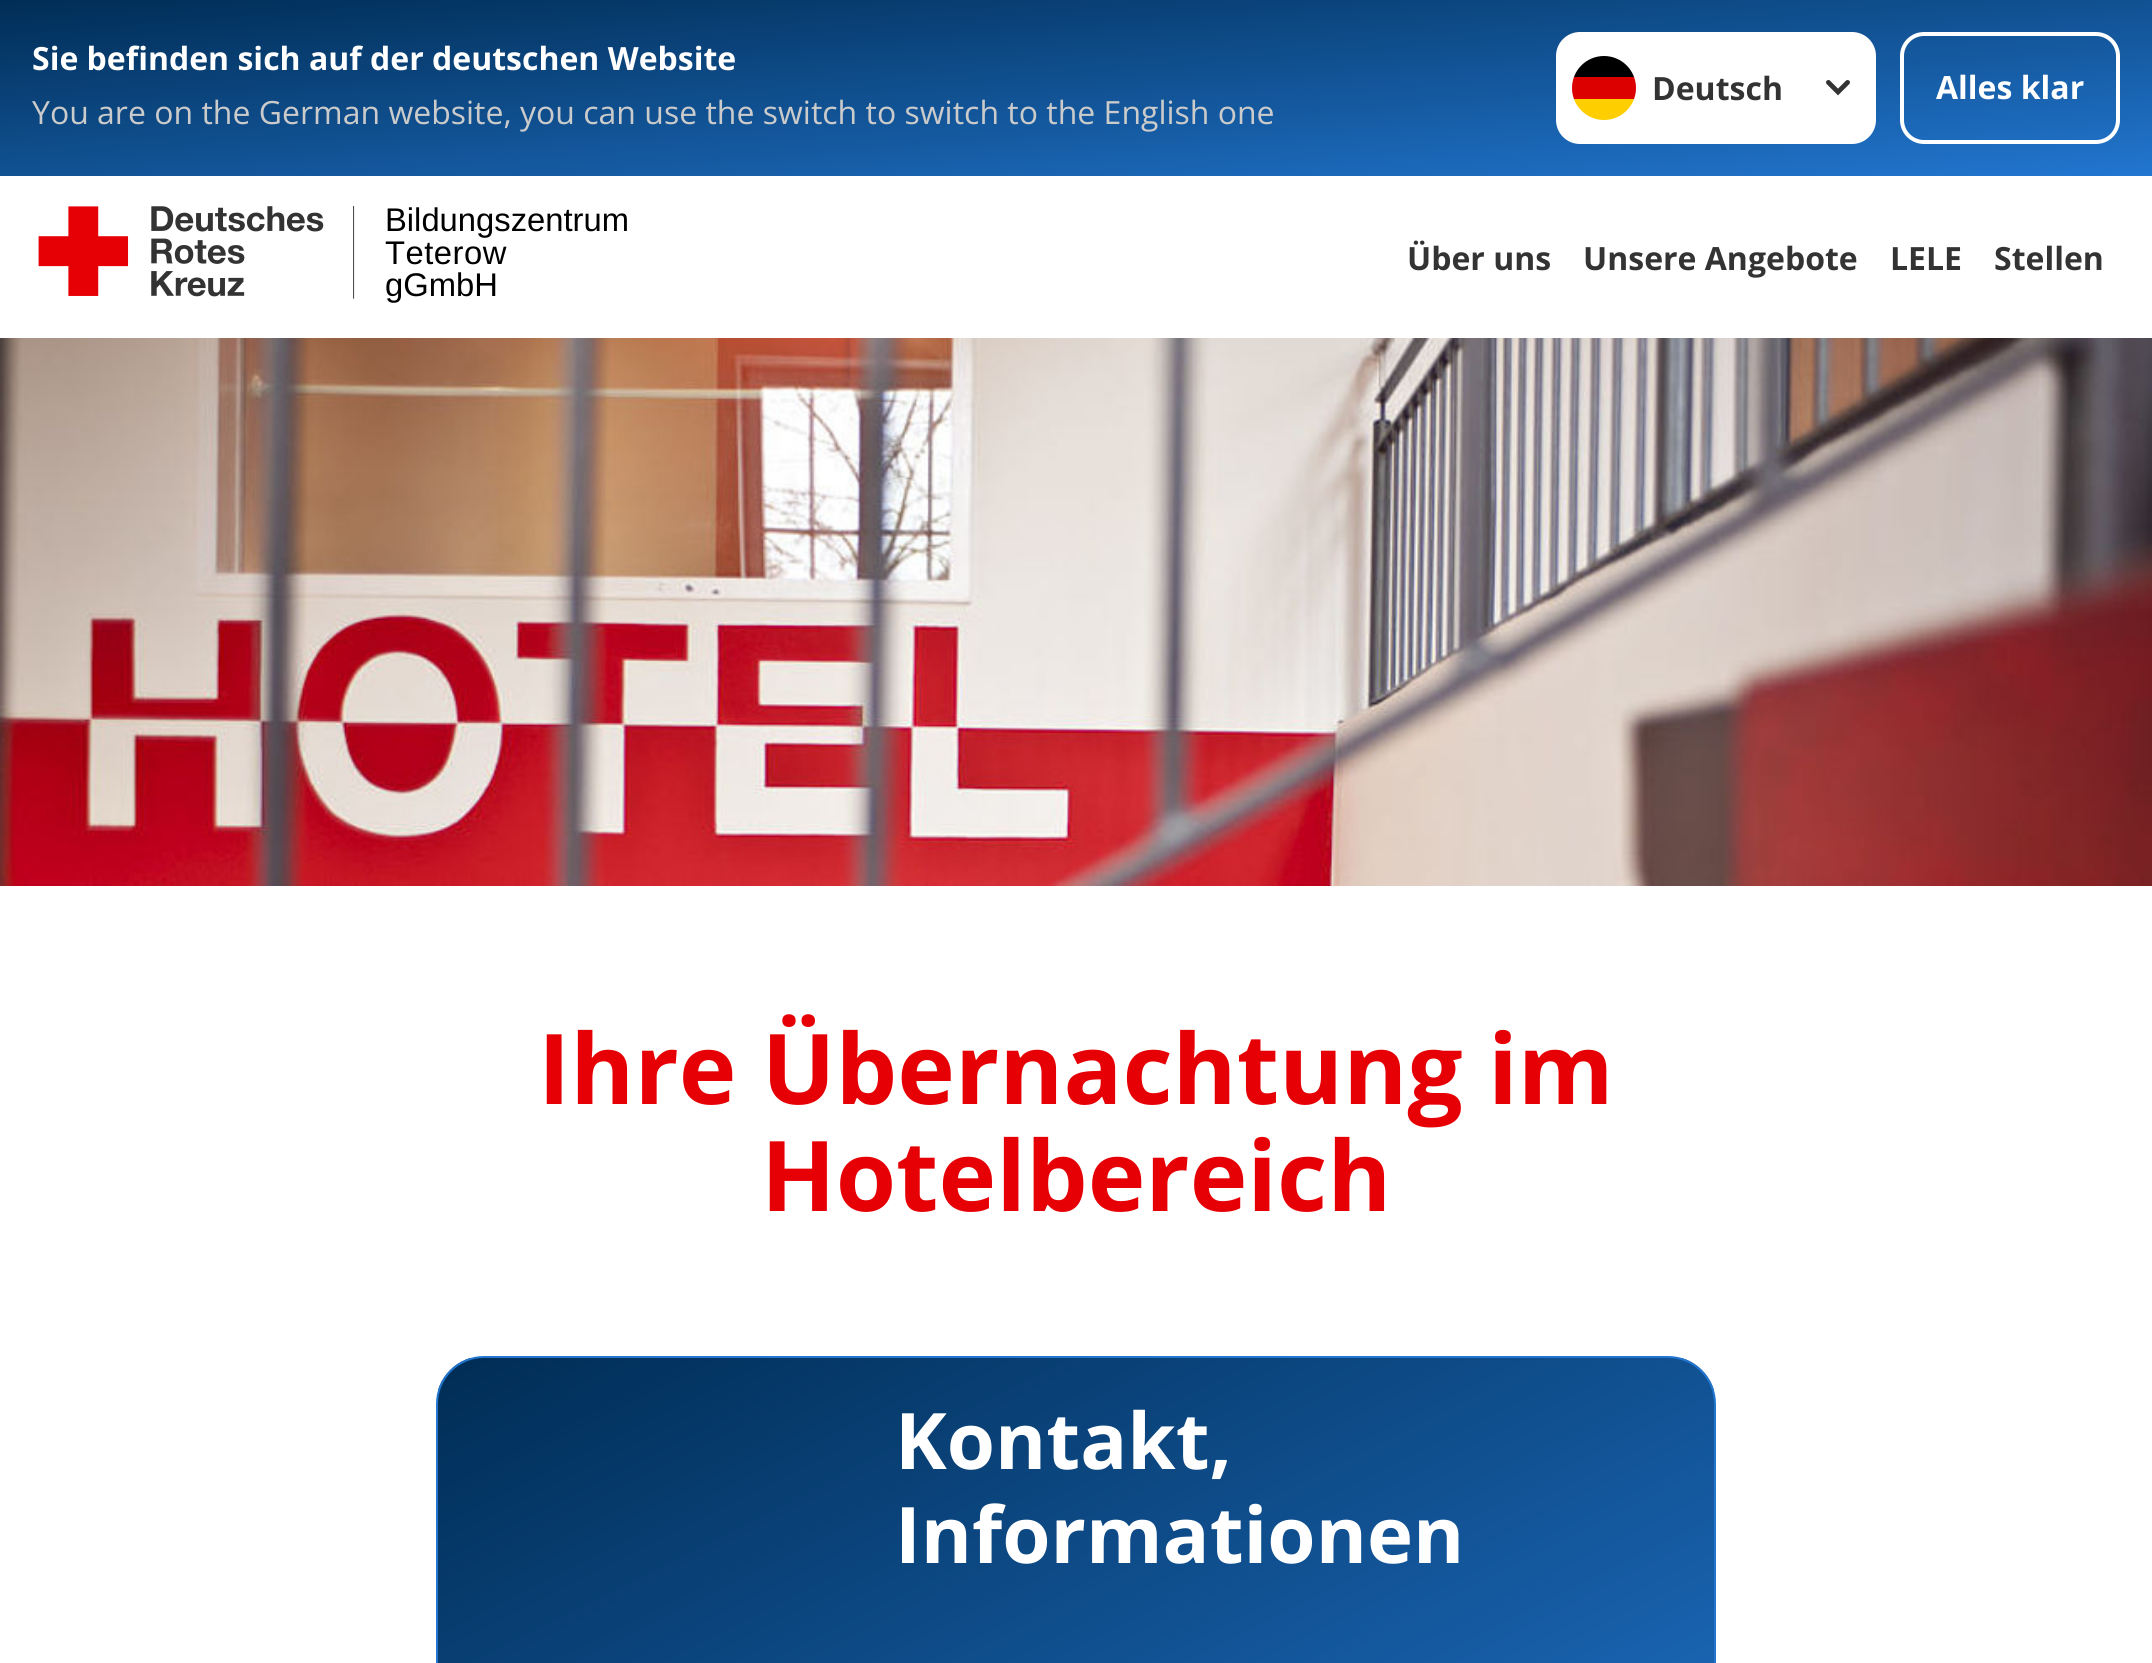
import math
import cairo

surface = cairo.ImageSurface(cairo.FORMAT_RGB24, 2152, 1663)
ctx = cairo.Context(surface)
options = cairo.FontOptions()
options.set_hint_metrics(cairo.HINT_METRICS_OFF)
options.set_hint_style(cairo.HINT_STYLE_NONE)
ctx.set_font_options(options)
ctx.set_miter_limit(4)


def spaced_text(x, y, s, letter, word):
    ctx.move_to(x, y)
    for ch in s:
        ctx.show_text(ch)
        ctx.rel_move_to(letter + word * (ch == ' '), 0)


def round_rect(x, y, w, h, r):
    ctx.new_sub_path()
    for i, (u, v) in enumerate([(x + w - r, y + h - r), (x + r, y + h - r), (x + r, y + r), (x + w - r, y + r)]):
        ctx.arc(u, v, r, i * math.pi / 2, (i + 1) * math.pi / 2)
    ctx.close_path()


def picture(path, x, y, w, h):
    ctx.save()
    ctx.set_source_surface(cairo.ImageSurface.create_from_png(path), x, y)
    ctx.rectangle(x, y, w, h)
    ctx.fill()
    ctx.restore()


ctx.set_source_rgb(1, 1, 1)
ctx.paint()
gradient = cairo.LinearGradient(1062, -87, 1090, 263)
gradient.add_color_stop_rgba(0, 0, 0.176, 0.333, 1)
gradient.add_color_stop_rgba(1, 0.133, 0.463, 0.816, 1)
ctx.set_source(gradient)
ctx.rectangle(0, 0, 2152, 176)
ctx.fill()
ctx.select_font_face("Open Sans", cairo.FONT_SLANT_NORMAL, cairo.FONT_WEIGHT_BOLD)
ctx.set_font_size(32)
ctx.set_source_rgb(1, 1, 1)
ctx.move_to(32, 70)
ctx.show_text("Sie befinden sich auf der deutschen Website")
ctx.select_font_face("Open Sans")
ctx.set_source_rgb(0.796, 0.796, 0.796)
ctx.move_to(32, 124)
ctx.show_text("You are on the German website, you can use the switch to switch to the English one")
ctx.set_source_rgb(1, 1, 1)
round_rect(1556, 32, 320, 112, 24)
ctx.fill()
ctx.save()
round_rect(1572, 56, 64, 64, 32)
ctx.clip()
ctx.set_source_rgb(1, 0.808, 0)
ctx.rectangle(1574, 99, 60, 21)
ctx.fill()
ctx.set_source_rgb(0, 0, 0)
ctx.rectangle(1574, 56, 60, 21)
ctx.fill()
ctx.set_source_rgb(0.867, 0, 0)
ctx.rectangle(1572, 77, 64, 22)
ctx.fill()
ctx.restore()
picture("img1.png", 1826, 80, 24, 16)
ctx.select_font_face("Open Sans", cairo.FONT_SLANT_NORMAL, cairo.FONT_WEIGHT_BOLD)
ctx.set_source_rgb(0.2, 0.2, 0.2)
ctx.move_to(1652, 100)
ctx.show_text("Deutsch")
round_rect(1902, 34, 216, 108, 22)
ctx.set_source_rgb(1, 1, 1)
ctx.set_line_width(4)
ctx.stroke()
ctx.move_to(1936, 99)
ctx.show_text("Alles klar")
picture("img2.png", 38, 206, 317, 93)
ctx.select_font_face("Liberation Sans")
ctx.set_font_size(32.75)
ctx.set_source_rgb(0, 0, 0)
ctx.move_to(385, 231)
ctx.show_text("Bildungszentrum")
spaced_text(385, 264, "Teterow", 0.5, 0)
ctx.move_to(385, 296)
ctx.show_text("gGmbH")
ctx.select_font_face("Open Sans", cairo.FONT_SLANT_NORMAL, cairo.FONT_WEIGHT_BOLD)
ctx.set_font_size(32)
ctx.set_source_rgb(0.2, 0.2, 0.2)
ctx.move_to(1407, 270)
ctx.show_text("Über uns")
ctx.move_to(1583, 270)
ctx.show_text("Unsere Angebote")
ctx.move_to(1890, 270)
ctx.show_text("LELE")
ctx.move_to(1994, 270)
ctx.show_text("Stellen")
picture("img3.png", 0, 338, 2152, 548)
ctx.set_font_size(97.6)
ctx.set_source_rgb(0.902, 0, 0.02)
ctx.move_to(538, 1104)
ctx.show_text("Ihre Übernachtung im")
ctx.move_to(761, 1211)
ctx.show_text("Hotelbereich")
ctx.save()
round_rect(436, 1356, 1280, 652, 48)
ctx.clip()
gradient = cairo.LinearGradient(814, 1167, 1338, 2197)
gradient.add_color_stop_rgba(0, 0, 0.176, 0.333, 1)
gradient.add_color_stop_rgba(1, 0.133, 0.463, 0.816, 1)
ctx.set_source(gradient)
ctx.rectangle(438, 1358, 1276, 305)
ctx.fill()
ctx.restore()
round_rect(437, 1357, 1278, 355, 47)
ctx.set_source_rgb(0.133, 0.463, 0.816)
ctx.set_line_width(2)
ctx.stroke()
ctx.set_font_size(78)
ctx.set_source_rgb(1, 1, 1)
ctx.move_to(895, 1469)
ctx.show_text("Kontakt,")
ctx.move_to(895, 1563)
ctx.show_text("Informationen")
surface.write_to_png("page.png")
